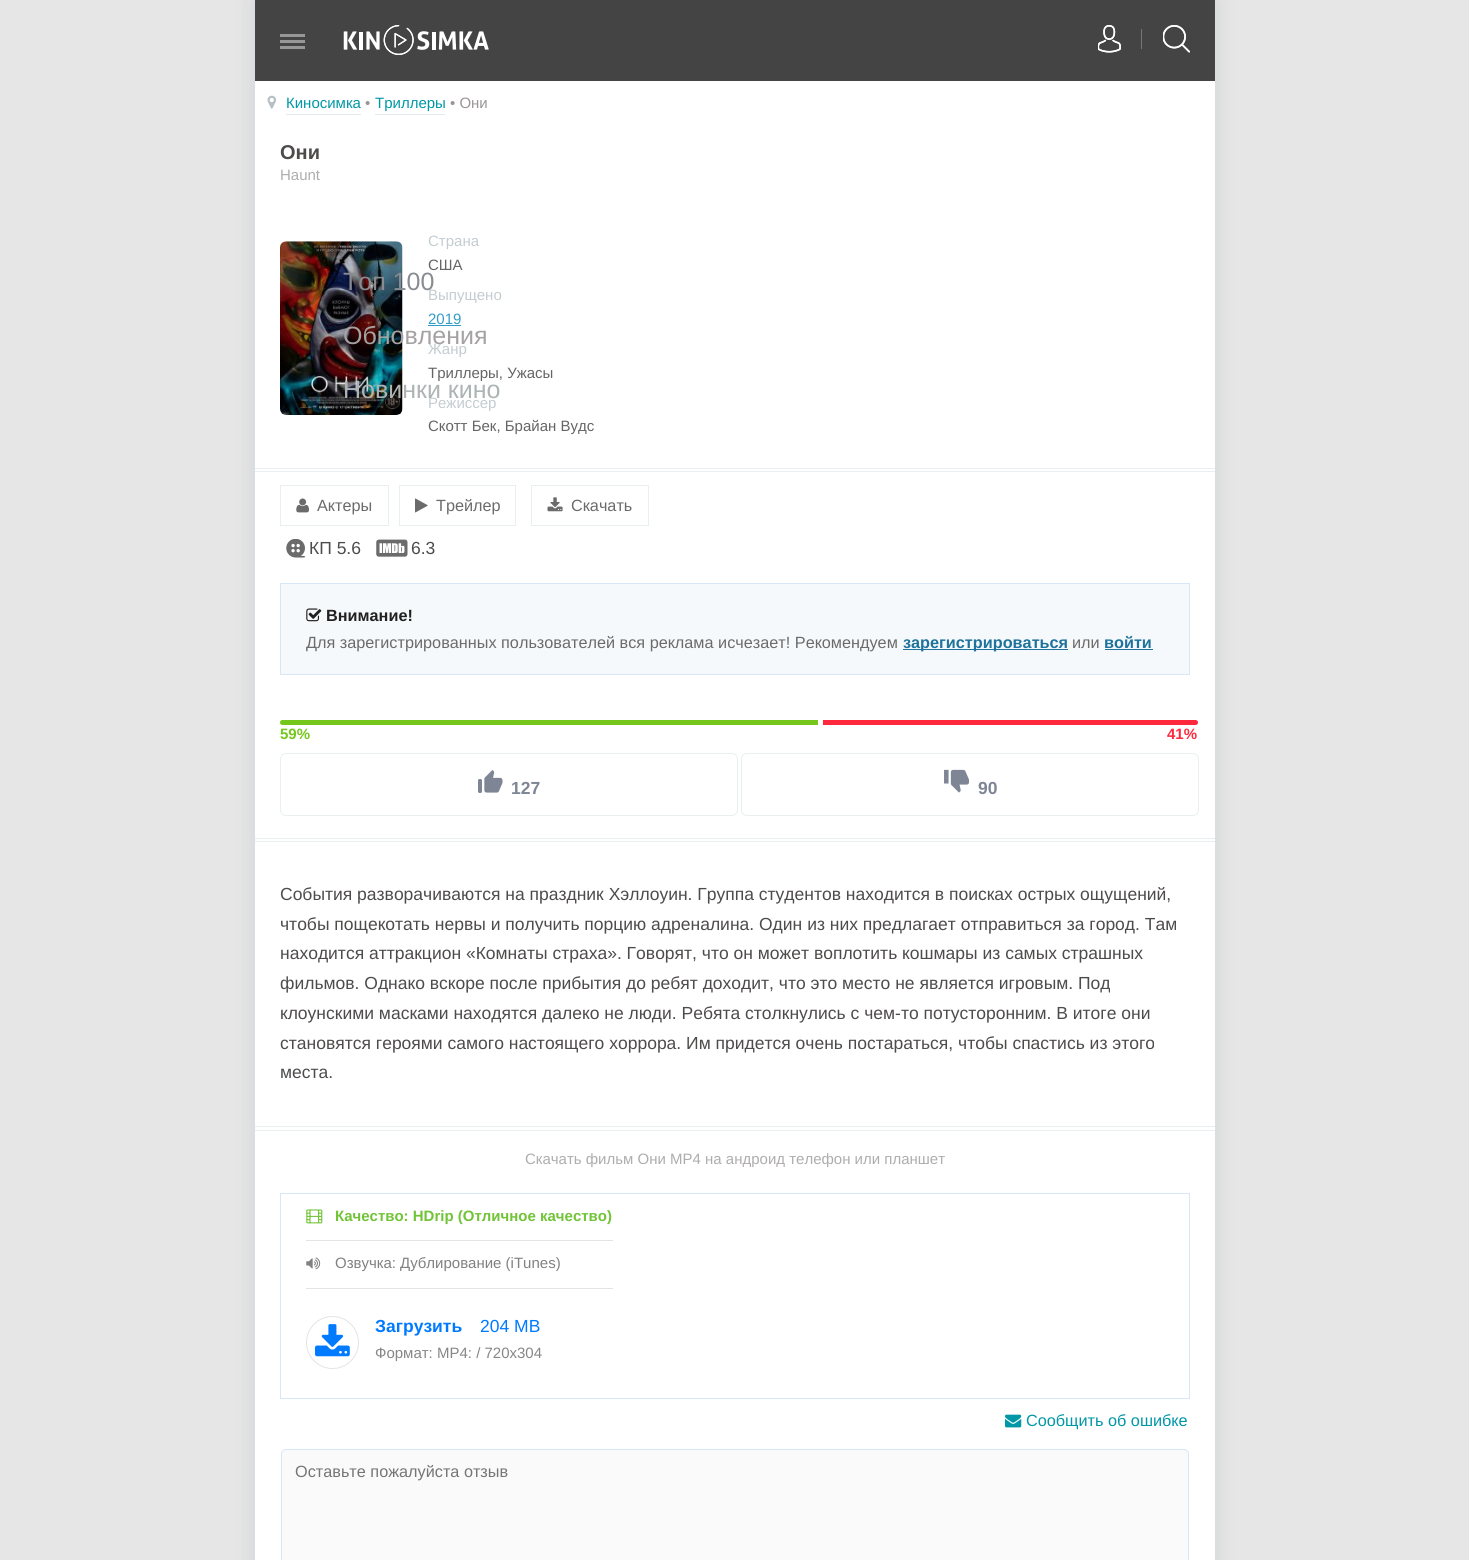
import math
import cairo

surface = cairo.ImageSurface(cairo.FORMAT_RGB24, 1469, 1560)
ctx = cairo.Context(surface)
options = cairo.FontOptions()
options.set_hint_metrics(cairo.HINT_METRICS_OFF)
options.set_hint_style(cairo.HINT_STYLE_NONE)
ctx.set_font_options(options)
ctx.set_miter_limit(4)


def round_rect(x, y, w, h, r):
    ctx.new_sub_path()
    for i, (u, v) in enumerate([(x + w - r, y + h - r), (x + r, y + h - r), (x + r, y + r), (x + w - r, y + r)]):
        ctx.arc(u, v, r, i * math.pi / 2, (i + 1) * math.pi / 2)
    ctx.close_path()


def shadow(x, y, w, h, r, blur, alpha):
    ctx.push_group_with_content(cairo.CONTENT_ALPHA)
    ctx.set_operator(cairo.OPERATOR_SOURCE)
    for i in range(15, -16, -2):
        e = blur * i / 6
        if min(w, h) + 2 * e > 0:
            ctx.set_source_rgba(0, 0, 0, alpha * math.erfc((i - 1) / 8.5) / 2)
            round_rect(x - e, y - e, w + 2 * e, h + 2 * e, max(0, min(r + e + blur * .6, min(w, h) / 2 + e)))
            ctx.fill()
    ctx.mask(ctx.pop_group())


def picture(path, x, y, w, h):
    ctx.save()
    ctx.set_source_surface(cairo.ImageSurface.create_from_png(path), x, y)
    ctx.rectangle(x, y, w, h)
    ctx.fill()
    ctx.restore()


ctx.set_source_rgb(0.902, 0.902, 0.902)
ctx.paint()
ctx.set_source_rgb(0.208, 0.29, 0.353)
shadow(255, 0, 960, 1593, 0, 11, 0.13)
ctx.set_source_rgb(1, 1, 1)
ctx.rectangle(255, 81, 960, 1479)
ctx.fill()
picture("img1.png", 267, 95, 9, 14)
ctx.select_font_face("Liberation Sans")
ctx.set_font_size(15)
ctx.set_source_rgb(0, 0.592, 0.655)
ctx.move_to(286, 108)
ctx.show_text("Киносимка")
ctx.set_source_rgb(0.882, 0.918, 0.937)
ctx.rectangle(286, 114, 75, 1)
ctx.fill()
ctx.set_source_rgb(0.604, 0.584, 0.584)
ctx.move_to(365, 108)
ctx.show_text("•")
ctx.set_source_rgb(0, 0.592, 0.655)
ctx.move_to(375, 108)
ctx.show_text("Триллеры")
ctx.set_source_rgb(0.882, 0.918, 0.937)
ctx.rectangle(375, 114, 70, 1)
ctx.fill()
ctx.set_source_rgb(0.604, 0.584, 0.584)
ctx.move_to(450, 108)
ctx.show_text("• Они")
ctx.select_font_face("Liberation Sans", cairo.FONT_SLANT_NORMAL, cairo.FONT_WEIGHT_BOLD)
ctx.set_font_size(20)
ctx.set_source_rgb(0.306, 0.294, 0.294)
ctx.move_to(280, 159)
ctx.show_text("Они")
ctx.select_font_face("Liberation Sans")
ctx.set_font_size(15)
ctx.set_source_rgb(0.686, 0.675, 0.675)
ctx.move_to(280, 180)
ctx.show_text("Haunt")
picture("img2.png", 280, 241, 123, 174)
ctx.set_source_rgb(0.765, 0.8, 0.82)
ctx.move_to(428, 246)
ctx.show_text("Страна")
ctx.set_source_rgb(0.396, 0.396, 0.396)
ctx.move_to(428, 270)
ctx.show_text("США")
ctx.set_source_rgb(0.765, 0.8, 0.82)
ctx.move_to(428, 300)
ctx.show_text("Выпущено")
ctx.set_source_rgb(0.192, 0.612, 0.784)
ctx.move_to(428, 324)
ctx.show_text("2019")
ctx.rectangle(428, 325, 33, 1)
ctx.fill()
ctx.set_source_rgb(0.765, 0.8, 0.82)
ctx.move_to(428, 354)
ctx.show_text("Жанр")
ctx.save()
ctx.rectangle(428, 340, 737, 41)
ctx.clip()
ctx.set_source_rgb(0.396, 0.396, 0.396)
ctx.move_to(428, 378)
ctx.show_text("Триллеры, Ужасы")
ctx.restore()
ctx.move_to(428, 408)
ctx.show_text("Режиссер")
ctx.set_source_rgb(0.396, 0.396, 0.396)
ctx.move_to(428, 431)
ctx.show_text("Скотт Бек, Брайан Вудс")
ctx.set_source_rgb(0.914, 0.933, 0.941)
ctx.rectangle(255, 468, 960, 1)
ctx.fill()
ctx.rectangle(255, 471, 960, 1)
ctx.fill()
ctx.rectangle(280.5, 485.5, 108, 40)
ctx.set_line_width(1)
ctx.stroke()
picture("img3.png", 296, 498, 13, 15)
ctx.set_font_size(16.25)
ctx.set_source_rgb(0.42, 0.42, 0.42)
ctx.move_to(317, 511)
ctx.show_text("Актеры")
ctx.rectangle(399.5, 485.5, 116, 40)
ctx.set_source_rgb(0.914, 0.933, 0.941)
ctx.stroke()
picture("img4.png", 415, 498, 13, 15)
ctx.set_source_rgb(0.42, 0.42, 0.42)
ctx.move_to(436, 511)
ctx.show_text("Трейлер")
ctx.rectangle(531.5, 485.5, 117, 40)
ctx.set_source_rgb(0.914, 0.933, 0.941)
ctx.stroke()
picture("img5.png", 547, 497, 16, 15)
ctx.set_source_rgb(0.42, 0.42, 0.42)
ctx.move_to(571, 511)
ctx.show_text("Скачать")
picture("img6.png", 286, 539, 19, 19)
ctx.set_font_size(17.5)
ctx.set_source_rgb(0.306, 0.294, 0.294)
ctx.move_to(309, 554)
ctx.show_text("КП 5.6")
picture("img7.png", 376, 539, 32, 18)
ctx.move_to(411, 554)
ctx.show_text("6.3")
ctx.set_source_rgb(0.961, 0.973, 0.984)
ctx.rectangle(280.5, 583.5, 909, 91)
ctx.fill_preserve()
ctx.set_source_rgb(0.847, 0.902, 0.969)
ctx.stroke()
picture("img8.png", 306, 608, 16, 14)
ctx.select_font_face("Liberation Sans", cairo.FONT_SLANT_NORMAL, cairo.FONT_WEIGHT_BOLD)
ctx.set_font_size(16.25)
ctx.set_source_rgb(0.129, 0.129, 0.129)
ctx.move_to(326, 621)
ctx.show_text("Внимание!")
ctx.select_font_face("Liberation Sans")
ctx.set_source_rgb(0.42, 0.42, 0.42)
ctx.move_to(306, 648)
ctx.show_text("Для зарегистрированных пользователей вся реклама исчезает! Рекомендуем")
ctx.set_source_rgb(0.118, 0.447, 0.608)
ctx.rectangle(903, 649, 165, 1)
ctx.fill()
ctx.select_font_face("Liberation Sans", cairo.FONT_SLANT_NORMAL, cairo.FONT_WEIGHT_BOLD)
ctx.move_to(903, 648)
ctx.show_text("зарегистрироваться")
ctx.select_font_face("Liberation Sans")
ctx.set_source_rgb(0.42, 0.42, 0.42)
ctx.move_to(1072, 648)
ctx.show_text("или")
ctx.select_font_face("Liberation Sans", cairo.FONT_SLANT_NORMAL, cairo.FONT_WEIGHT_BOLD)
ctx.set_source_rgb(0.118, 0.447, 0.608)
ctx.move_to(1104, 648)
ctx.show_text("войти")
ctx.rectangle(1105, 649, 48, 1)
ctx.fill()
ctx.set_source_rgb(0.459, 0.78, 0.106)
ctx.new_path()
ctx.move_to(282.5, 720)
ctx.line_to(818, 720)
ctx.line_to(818, 725)
ctx.line_to(282.5, 725)
ctx.curve_to(281, 725, 280, 724, 280, 722.5)
ctx.curve_to(280, 721, 281, 720, 282.5, 720)
ctx.close_path()
ctx.fill()
ctx.set_source_rgb(1, 0.161, 0.239)
ctx.new_path()
ctx.move_to(823, 720)
ctx.line_to(1195.5, 720)
ctx.curve_to(1197, 720, 1198, 721, 1198, 722.5)
ctx.curve_to(1198, 724, 1197, 725, 1195.5, 725)
ctx.line_to(823, 725)
ctx.close_path()
ctx.fill()
ctx.set_font_size(15)
ctx.set_source_rgb(0.459, 0.78, 0.106)
ctx.move_to(280, 739)
ctx.show_text("59%")
ctx.set_source_rgb(1, 0.161, 0.239)
ctx.move_to(1167, 739)
ctx.show_text("41%")
round_rect(280.5, 753.5, 457, 62, 5.5)
ctx.set_source_rgb(0.914, 0.933, 0.941)
ctx.stroke()
picture("img9.png", 478, 770, 25, 23)
ctx.set_font_size(17.5)
ctx.set_source_rgb(0.494, 0.522, 0.58)
ctx.move_to(511, 794)
ctx.show_text("127")
round_rect(741.5, 753.5, 457, 62, 5.5)
ctx.set_source_rgb(0.914, 0.933, 0.941)
ctx.stroke()
picture("img10.png", 944, 769, 25, 24)
ctx.set_source_rgb(0.494, 0.522, 0.58)
ctx.move_to(978, 794)
ctx.show_text("90")
ctx.set_source_rgb(0.914, 0.933, 0.941)
ctx.rectangle(255, 838, 960, 1)
ctx.fill()
ctx.rectangle(255, 841, 960, 1)
ctx.fill()
ctx.select_font_face("Liberation Sans")
ctx.set_source_rgb(0.306, 0.294, 0.294)
ctx.move_to(280, 900)
ctx.show_text("События разворачиваются на праздник Хэллоуин. Группа студентов находится в поисках острых ощущений,")
ctx.move_to(280, 930)
ctx.show_text("чтобы пощекотать нервы и получить порцию адреналина. Один из них предлагает отправиться за город. Там")
ctx.move_to(280, 959)
ctx.show_text("находится аттракцион «Комнаты страха». Говорят, что он может воплотить кошмары из самых страшных")
ctx.move_to(280, 989)
ctx.show_text("фильмов. Однако вскоре после прибытия до ребят доходит, что это место не является игровым. Под")
ctx.move_to(280, 1019)
ctx.show_text("клоунскими масками находятся далеко не люди. Ребята столкнулись с чем-то потусторонним. В итоге они")
ctx.move_to(280, 1049)
ctx.show_text("становятся героями самого настоящего хоррора. Им придется очень постараться, чтобы спастись из этого")
ctx.move_to(280, 1078)
ctx.show_text("места.")
ctx.set_source_rgb(0.914, 0.933, 0.941)
ctx.rectangle(255, 1126, 960, 1)
ctx.fill()
ctx.rectangle(255, 1130, 960, 1)
ctx.fill()
ctx.set_font_size(15)
ctx.set_source_rgb(0.686, 0.675, 0.675)
ctx.move_to(525, 1164)
ctx.show_text("Скачать фильм Они MP4 на андроид телефон или планшет")
ctx.rectangle(280.5, 1193.5, 909, 205)
ctx.set_source_rgb(0.847, 0.902, 0.969)
ctx.stroke()
ctx.set_source_rgb(0.894, 0.894, 0.894)
ctx.rectangle(306, 1240, 307, 1)
ctx.fill()
picture("img11.png", 306, 1209, 17, 15)
ctx.select_font_face("Liberation Sans", cairo.FONT_SLANT_NORMAL, cairo.FONT_WEIGHT_BOLD)
ctx.set_source_rgb(0.443, 0.765, 0.216)
ctx.move_to(335, 1221)
ctx.show_text("Качество: HDrip (Отличное качество)")
ctx.set_source_rgb(0.894, 0.894, 0.894)
ctx.rectangle(306, 1288, 307, 1)
ctx.fill()
picture("img12.png", 306, 1257, 15, 13)
ctx.select_font_face("Liberation Sans")
ctx.set_source_rgb(0.51, 0.506, 0.506)
ctx.move_to(335, 1268)
ctx.show_text("Озвучка: Дублирование (iTunes)")
ctx.new_path()
ctx.arc(332.5, 1342.5, 26, 0, 2 * math.pi)
ctx.set_source_rgb(0.894, 0.894, 0.894)
ctx.stroke()
picture("img13.png", 315, 1324, 35, 33)
ctx.select_font_face("Liberation Sans", cairo.FONT_SLANT_NORMAL, cairo.FONT_WEIGHT_BOLD)
ctx.set_font_size(17.5)
ctx.set_source_rgb(0, 0.478, 1)
ctx.move_to(375, 1332)
ctx.show_text("Загрузить")
ctx.select_font_face("Liberation Sans")
ctx.move_to(480, 1332)
ctx.show_text("204 MB")
ctx.set_font_size(15)
ctx.set_source_rgb(0.529, 0.529, 0.529)
ctx.move_to(375, 1358)
ctx.show_text("Формат: MP4: / 720x304")
picture("img14.png", 1005, 1414, 17, 14)
ctx.set_font_size(16.25)
ctx.set_source_rgb(0, 0.592, 0.655)
ctx.move_to(1026, 1426)
ctx.show_text("Сообщить об ошибке")
ctx.set_source_rgb(0.98, 0.98, 0.98)
round_rect(281.5, 1449.5, 907, 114, 4.5)
ctx.fill_preserve()
ctx.set_source_rgb(0.847, 0.902, 0.969)
ctx.stroke()
ctx.set_source_rgb(0.459, 0.459, 0.459)
ctx.move_to(295, 1477)
ctx.show_text("Оставьте пожалуйста отзыв")
ctx.set_source_rgb(0.267, 0.267, 0.267)
ctx.rectangle(255, 0, 960, 81)
ctx.fill()
ctx.set_source_rgb(0.592, 0.592, 0.592)
ctx.rectangle(280, 40, 25, 3)
ctx.fill()
ctx.rectangle(280, 34, 25, 3)
ctx.fill()
ctx.rectangle(280, 46, 25, 3)
ctx.fill()
picture("img15.png", 343, 25, 146, 30)
picture("img16.png", 1098, 25, 23, 28)
picture("img17.png", 1163, 25, 27, 28)
ctx.set_source_rgb(0.459, 0.459, 0.459)
ctx.rectangle(1141, 29, 1, 20)
ctx.fill()
ctx.set_font_size(25)
ctx.set_source_rgb(0.533, 0.545, 0.573)
ctx.move_to(343, 290)
ctx.show_text("Топ 100")
ctx.set_source_rgb(0.647, 0.635, 0.639)
ctx.move_to(343, 344)
ctx.show_text("Обновления")
ctx.set_source_rgb(0.678, 0.706, 0.706)
ctx.move_to(343, 398)
ctx.show_text("Новинки кино")
surface.write_to_png("page.png")
